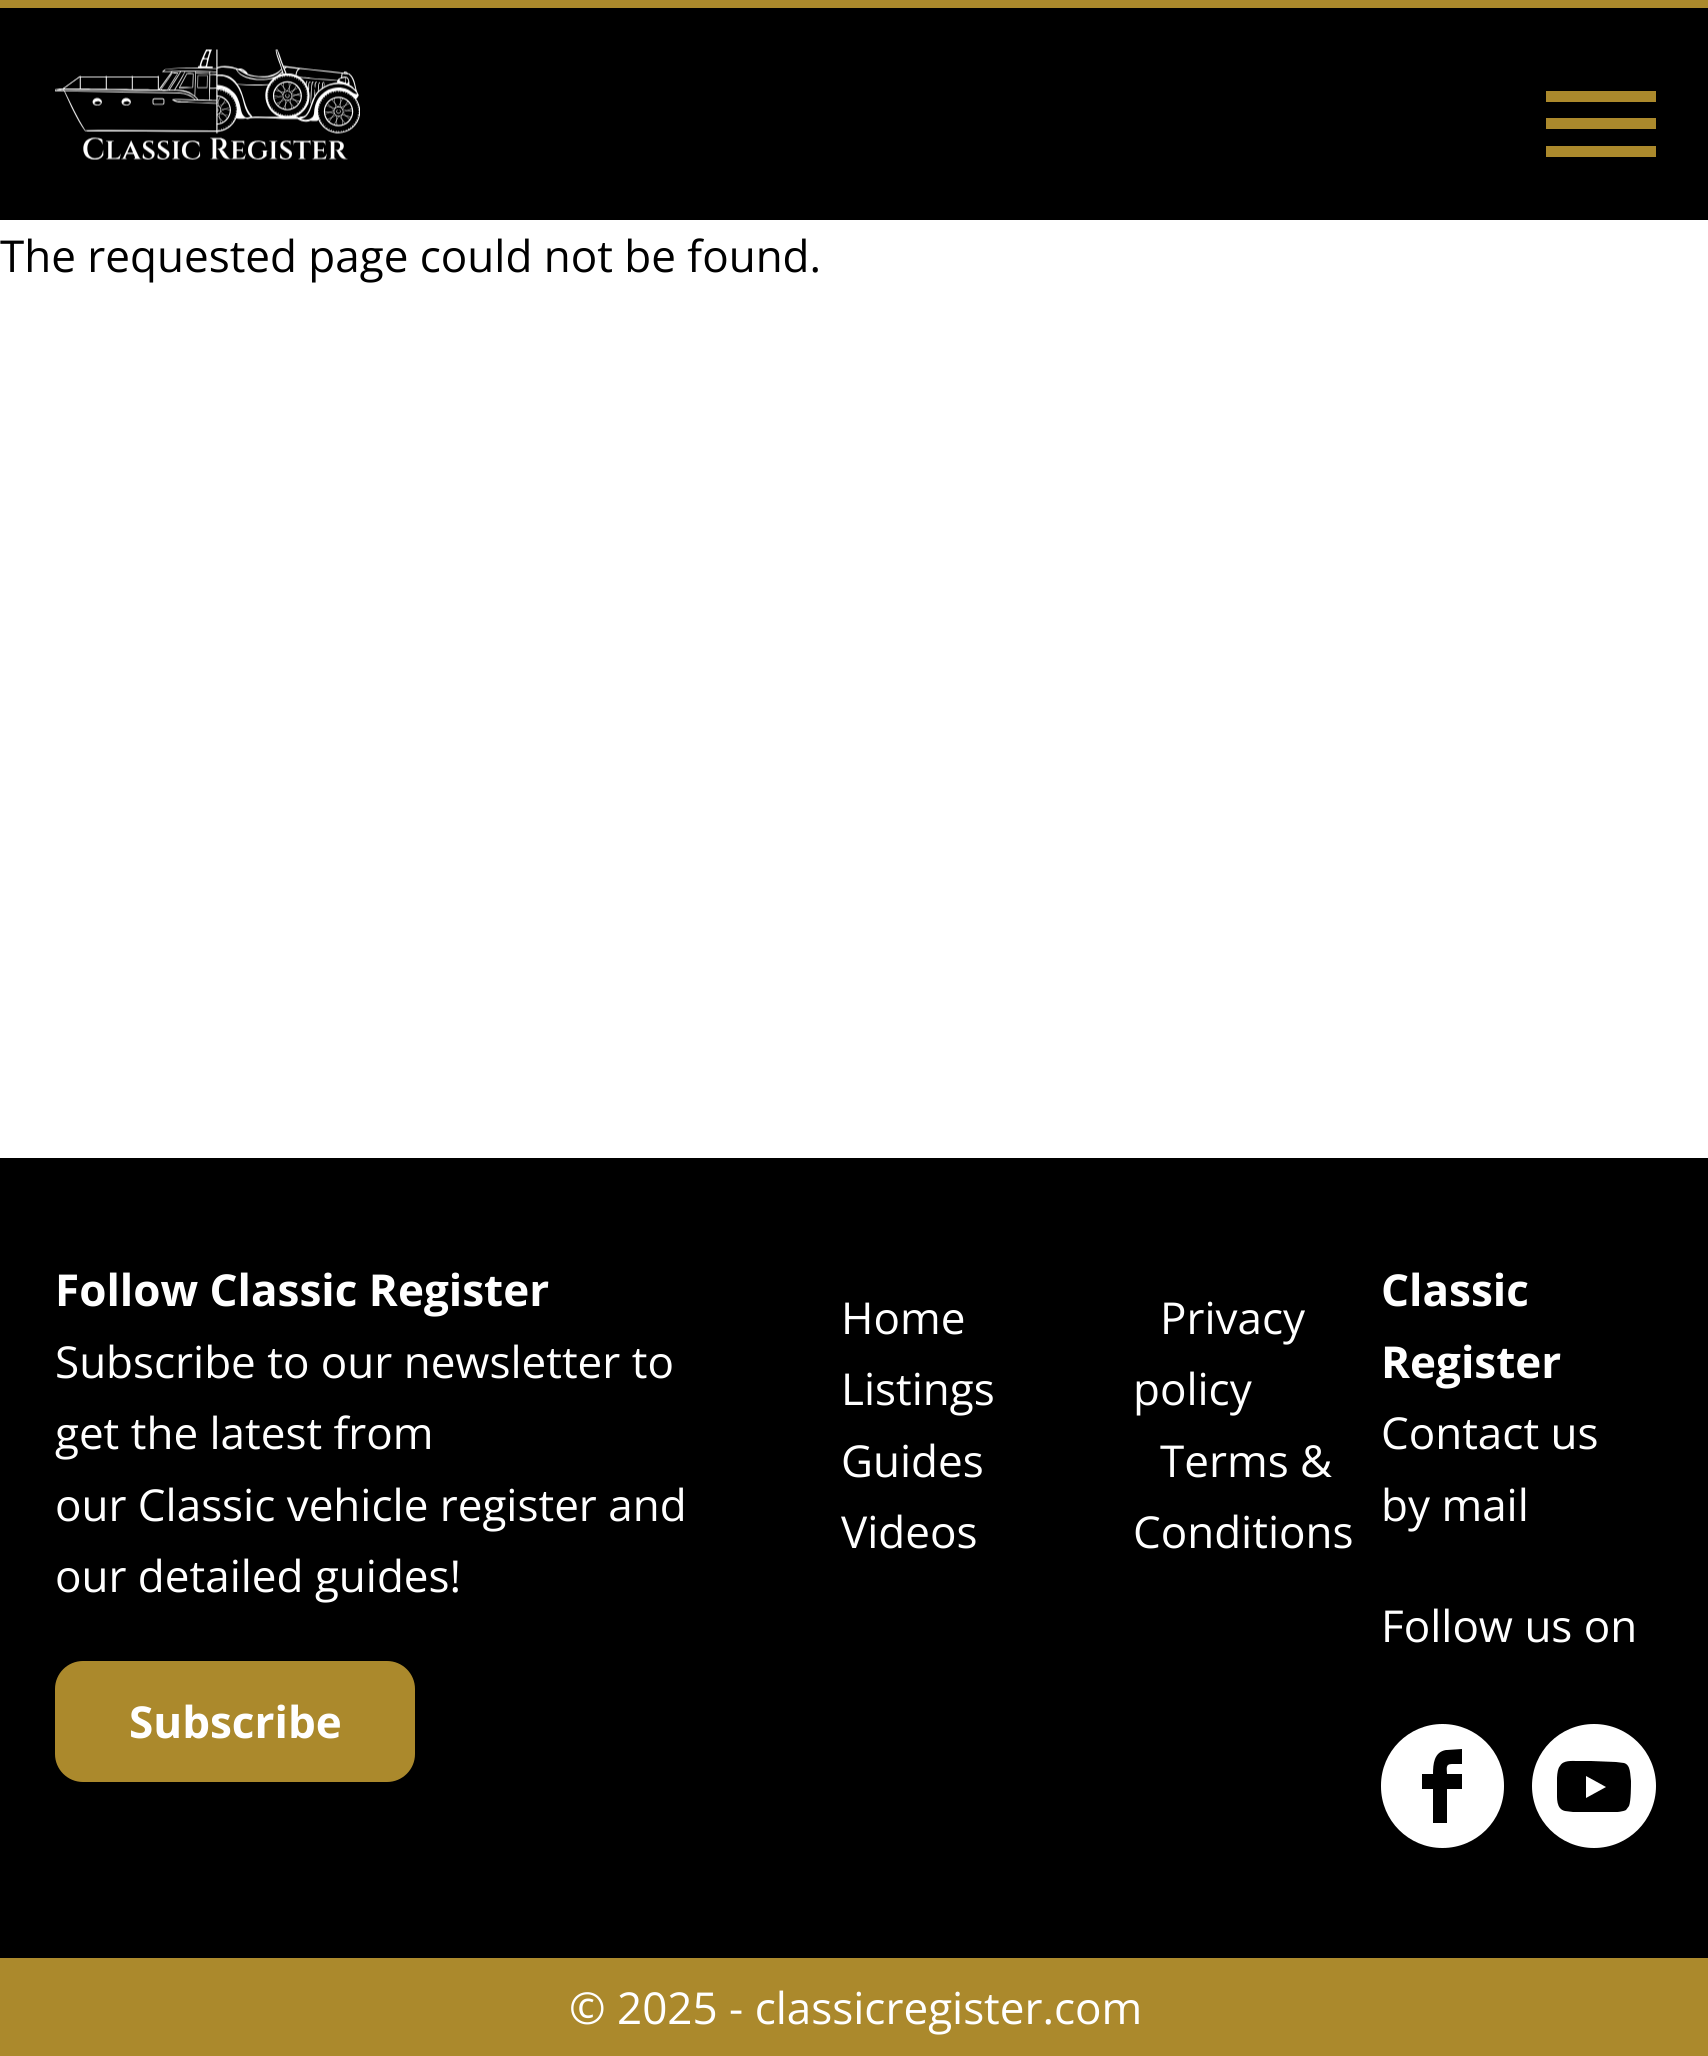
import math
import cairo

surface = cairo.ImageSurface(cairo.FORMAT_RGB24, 1708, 2056)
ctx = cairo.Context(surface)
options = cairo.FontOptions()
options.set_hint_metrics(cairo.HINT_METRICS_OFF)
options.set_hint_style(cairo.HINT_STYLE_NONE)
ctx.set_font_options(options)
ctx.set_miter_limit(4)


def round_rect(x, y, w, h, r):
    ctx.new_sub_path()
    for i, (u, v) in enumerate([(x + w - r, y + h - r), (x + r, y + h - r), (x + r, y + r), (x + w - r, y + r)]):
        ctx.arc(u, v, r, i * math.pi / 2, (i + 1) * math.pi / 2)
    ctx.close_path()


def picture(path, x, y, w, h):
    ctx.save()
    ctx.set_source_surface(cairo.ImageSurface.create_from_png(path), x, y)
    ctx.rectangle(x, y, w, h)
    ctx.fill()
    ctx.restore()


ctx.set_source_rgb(1, 1, 1)
ctx.paint()
ctx.set_source_rgb(0, 0, 0)
ctx.rectangle(0, 8, 1708, 212)
ctx.fill()
ctx.set_source_rgb(0.671, 0.537, 0.173)
ctx.rectangle(0, 0, 1708, 8)
ctx.fill()
picture("img1.png", 55, 49, 305, 111)
ctx.rectangle(1546, 118, 110, 11)
ctx.fill()
ctx.rectangle(1546, 91, 110, 11)
ctx.fill()
ctx.rectangle(1546, 146, 110, 11)
ctx.fill()
ctx.select_font_face("Open Sans")
ctx.set_font_size(44)
ctx.set_source_rgb(0, 0, 0)
ctx.move_to(0, 272)
ctx.show_text("The requested page could not be found.")
ctx.rectangle(0, 1158, 1708, 800)
ctx.fill()
ctx.select_font_face("Open Sans", cairo.FONT_SLANT_NORMAL, cairo.FONT_WEIGHT_BOLD)
ctx.set_source_rgb(1, 1, 1)
ctx.move_to(55, 1306)
ctx.show_text("Follow Classic Register")
ctx.select_font_face("Open Sans")
ctx.move_to(55, 1378)
ctx.show_text("Subscribe to our newsletter to")
ctx.move_to(55, 1449)
ctx.show_text("get the latest from")
ctx.move_to(55, 1521)
ctx.show_text("our Classic vehicle register and")
ctx.move_to(55, 1592)
ctx.show_text("our detailed guides!")
ctx.set_source_rgb(0.671, 0.537, 0.173)
round_rect(56.5, 1662.5, 357, 118, 26.5)
ctx.fill_preserve()
ctx.set_line_width(3)
ctx.stroke()
ctx.select_font_face("Open Sans", cairo.FONT_SLANT_NORMAL, cairo.FONT_WEIGHT_BOLD)
ctx.set_source_rgb(1, 1, 1)
ctx.move_to(129, 1738)
ctx.show_text("Subscribe")
ctx.select_font_face("Open Sans")
ctx.move_to(841, 1334)
ctx.show_text("Home")
ctx.move_to(841, 1405)
ctx.show_text("Listings")
ctx.move_to(841, 1477)
ctx.show_text("Guides")
ctx.move_to(841, 1548)
ctx.show_text("Videos")
ctx.move_to(1160, 1334)
ctx.show_text("Privacy")
ctx.move_to(1133, 1405)
ctx.show_text("policy")
ctx.move_to(1160, 1477)
ctx.show_text("Terms &")
ctx.move_to(1133, 1548)
ctx.show_text("Conditions")
ctx.select_font_face("Open Sans", cairo.FONT_SLANT_NORMAL, cairo.FONT_WEIGHT_BOLD)
ctx.move_to(1381, 1306)
ctx.show_text("Classic")
ctx.move_to(1381, 1378)
ctx.show_text("Register")
ctx.select_font_face("Open Sans")
ctx.move_to(1381, 1449)
ctx.show_text("Contact us")
ctx.move_to(1381, 1521)
ctx.show_text("by mail")
ctx.move_to(1381, 1642)
ctx.show_text("Follow us on")
round_rect(1381, 1724, 123, 124, 61.5)
ctx.fill()
ctx.set_source_rgb(0, 0, 0)
ctx.new_path()
ctx.move_to(1433, 1823)
ctx.line_to(1433, 1789)
ctx.line_to(1422, 1789)
ctx.line_to(1422, 1774)
ctx.line_to(1433, 1774)
ctx.curve_to(1433, 1764, 1434, 1752, 1446, 1750)
ctx.line_to(1462, 1749)
ctx.line_to(1462, 1764)
ctx.line_to(1452, 1764)
ctx.curve_to(1445, 1764, 1447, 1769, 1447, 1774)
ctx.line_to(1462, 1774)
ctx.line_to(1462, 1789)
ctx.line_to(1447, 1789)
ctx.line_to(1447, 1823)
ctx.close_path()
ctx.fill()
ctx.set_source_rgb(1, 1, 1)
ctx.arc(1594, 1786, 62, 0, 2 * math.pi)
ctx.fill()
ctx.save()
ctx.rectangle(1557, 1760, 74, 52)
ctx.clip()
ctx.set_source_rgb(0, 0, 0)
ctx.new_path()
ctx.move_to(1557, 1791)
ctx.curve_to(1557, 1785, 1556, 1770, 1560, 1766)
ctx.curve_to(1563, 1760, 1572, 1761, 1577, 1761)
ctx.line_to(1591, 1761)
ctx.line_to(1616, 1762)
ctx.line_to(1624, 1763)
ctx.curve_to(1631, 1765, 1630, 1775, 1631, 1781)
ctx.curve_to(1631, 1786, 1631, 1801, 1629, 1806)
ctx.line_to(1626, 1810)
ctx.curve_to(1621, 1813, 1600, 1813, 1596, 1813)
ctx.line_to(1573, 1812)
ctx.line_to(1565, 1811)
ctx.curve_to(1556, 1809, 1557, 1798, 1557, 1791)
ctx.close_path()
ctx.move_to(1586, 1776)
ctx.line_to(1586, 1798)
ctx.line_to(1606, 1787)
ctx.close_path()
ctx.fill()
ctx.restore()
ctx.set_source_rgb(0.671, 0.537, 0.173)
ctx.rectangle(0, 1958, 1708, 98)
ctx.fill()
ctx.set_source_rgb(1, 1, 1)
ctx.move_to(569, 2024)
ctx.show_text("© 2025 - classicregister.com")
surface.write_to_png("page.png")
